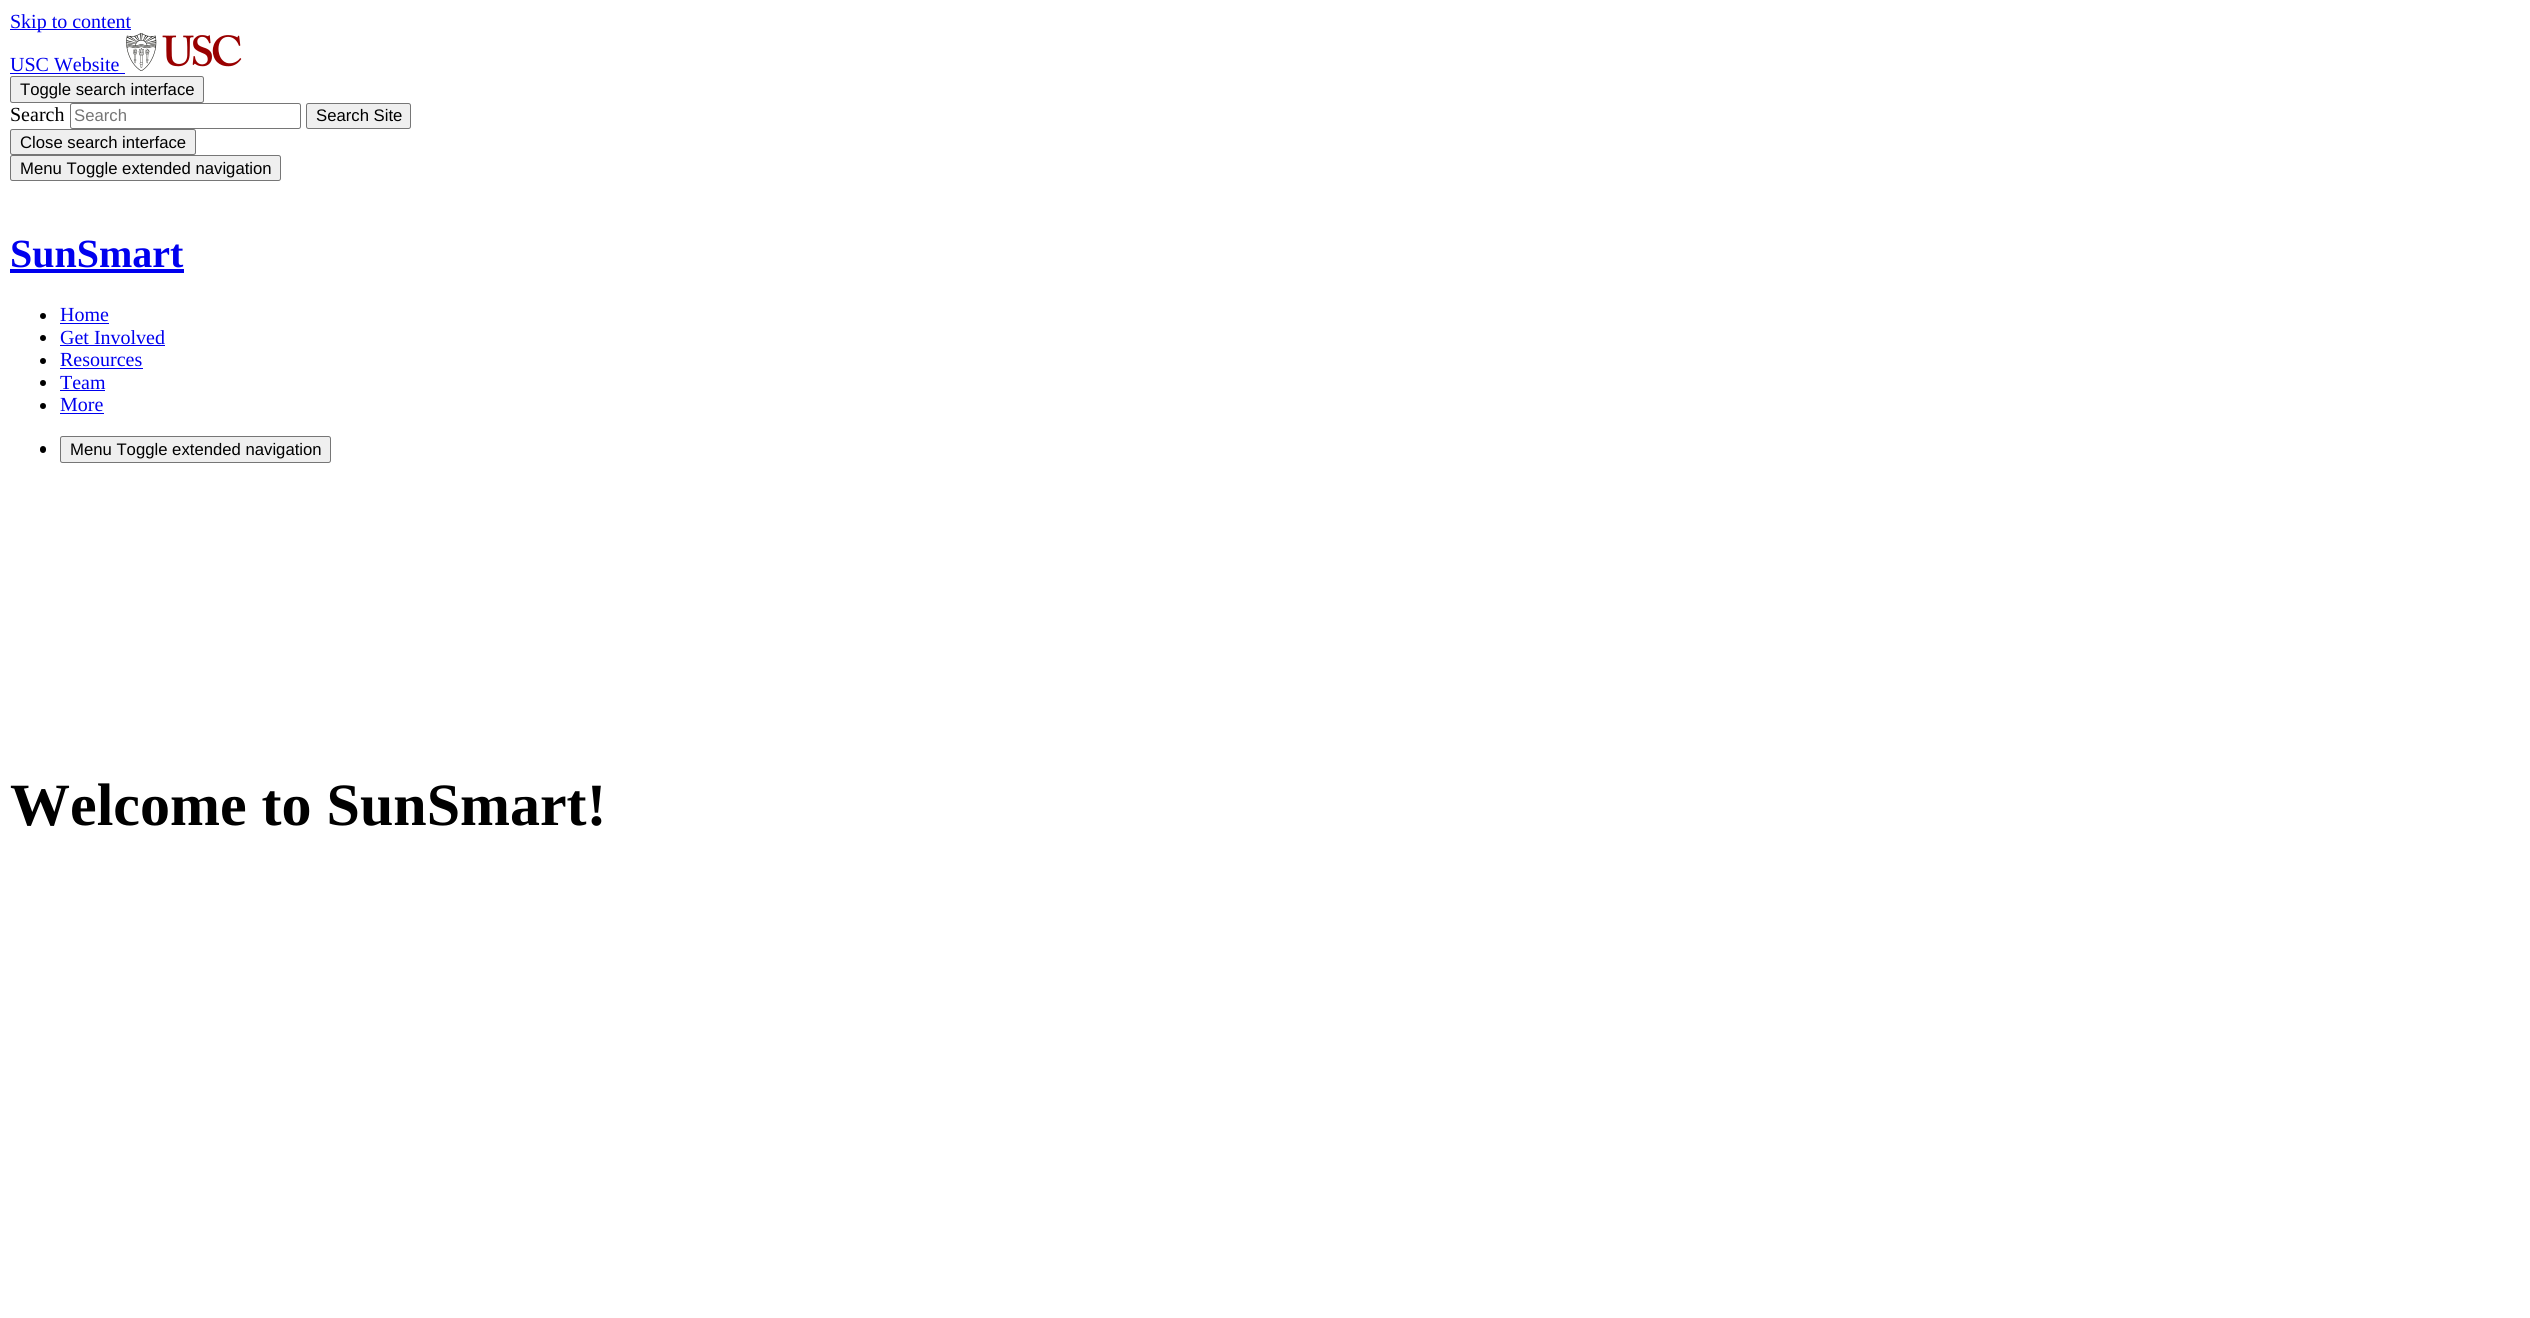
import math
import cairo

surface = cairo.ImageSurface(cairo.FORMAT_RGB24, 2530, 1318)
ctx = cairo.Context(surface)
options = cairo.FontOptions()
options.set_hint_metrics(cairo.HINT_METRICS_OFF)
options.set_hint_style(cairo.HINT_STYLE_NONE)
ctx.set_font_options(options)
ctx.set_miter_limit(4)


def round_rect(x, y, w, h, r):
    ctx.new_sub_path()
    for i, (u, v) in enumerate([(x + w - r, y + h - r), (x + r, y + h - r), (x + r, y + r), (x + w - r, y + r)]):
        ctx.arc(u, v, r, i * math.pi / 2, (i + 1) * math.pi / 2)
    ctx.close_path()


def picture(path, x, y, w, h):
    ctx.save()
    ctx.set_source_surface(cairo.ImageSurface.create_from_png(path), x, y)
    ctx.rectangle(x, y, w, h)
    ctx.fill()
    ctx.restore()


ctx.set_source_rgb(1, 1, 1)
ctx.paint()
ctx.set_source_rgb(0, 0, 0.933)
ctx.rectangle(10, 29, 121, 1)
ctx.fill()
ctx.select_font_face("Liberation Serif")
ctx.set_font_size(20)
ctx.move_to(10, 28)
ctx.show_text("Skip to content")
ctx.move_to(10, 71)
ctx.show_text("USC Website")
ctx.rectangle(10, 73, 115, 1)
ctx.fill()
picture("img1.png", 126, 33, 116, 38)
ctx.set_source_rgb(0.937, 0.937, 0.937)
round_rect(10.5, 76.5, 193, 26, 2)
ctx.fill_preserve()
ctx.set_source_rgb(0.463, 0.463, 0.463)
ctx.set_line_width(1)
ctx.stroke()
ctx.select_font_face("Liberation Sans")
ctx.set_font_size(16.7)
ctx.set_source_rgb(0, 0, 0)
ctx.move_to(20, 95)
ctx.show_text("Toggle search interface")
ctx.select_font_face("Liberation Serif")
ctx.set_font_size(20)
ctx.move_to(10, 121)
ctx.show_text("Search")
round_rect(70.5, 103.5, 230, 25, 2)
ctx.set_source_rgb(0.463, 0.463, 0.463)
ctx.stroke()
ctx.select_font_face("Liberation Sans")
ctx.set_font_size(16.7)
ctx.set_source_rgb(0.459, 0.459, 0.459)
ctx.move_to(74, 121)
ctx.show_text("Search")
ctx.set_source_rgb(0.937, 0.937, 0.937)
round_rect(306.5, 103.5, 104, 25, 2)
ctx.fill_preserve()
ctx.set_source_rgb(0.463, 0.463, 0.463)
ctx.stroke()
ctx.set_source_rgb(0, 0, 0)
ctx.move_to(316, 121)
ctx.show_text("Search Site")
ctx.set_source_rgb(0.937, 0.937, 0.937)
round_rect(10.5, 129.5, 185, 25, 2)
ctx.fill_preserve()
ctx.set_source_rgb(0.463, 0.463, 0.463)
ctx.stroke()
ctx.set_source_rgb(0, 0, 0)
ctx.move_to(20, 148)
ctx.show_text("Close search interface")
ctx.set_source_rgb(0.937, 0.937, 0.937)
round_rect(10.5, 155.5, 270, 25, 2)
ctx.fill_preserve()
ctx.set_source_rgb(0.463, 0.463, 0.463)
ctx.stroke()
ctx.set_source_rgb(0, 0, 0)
ctx.move_to(20, 174)
ctx.show_text("Menu Toggle extended navigation")
ctx.select_font_face("Liberation Serif", cairo.FONT_SLANT_NORMAL, cairo.FONT_WEIGHT_BOLD)
ctx.set_font_size(40)
ctx.set_source_rgb(0, 0, 0.933)
ctx.move_to(10, 267)
ctx.show_text("SunSmart")
ctx.rectangle(10, 269, 174, 4)
ctx.fill()
ctx.set_source_rgb(0, 0, 0)
ctx.arc(43, 316, 3, 0, 2 * math.pi)
ctx.fill()
ctx.select_font_face("Liberation Serif")
ctx.set_font_size(20)
ctx.set_source_rgb(0, 0, 0.933)
ctx.move_to(60, 321)
ctx.show_text("Home")
ctx.rectangle(60, 323, 49, 1)
ctx.fill()
ctx.set_source_rgb(0, 0, 0)
ctx.arc(43, 338, 3, 0, 2 * math.pi)
ctx.fill()
ctx.set_source_rgb(0, 0, 0.933)
ctx.move_to(60, 344)
ctx.show_text("Get Involved")
ctx.rectangle(60, 345, 105, 1)
ctx.fill()
ctx.set_source_rgb(0, 0, 0)
ctx.arc(43, 361, 3, 0, 2 * math.pi)
ctx.fill()
ctx.set_source_rgb(0, 0, 0.933)
ctx.move_to(60, 366)
ctx.show_text("Resources")
ctx.rectangle(60, 368, 83, 1)
ctx.fill()
ctx.set_source_rgb(0, 0, 0)
ctx.arc(43, 383, 3, 0, 2 * math.pi)
ctx.fill()
ctx.set_source_rgb(0, 0, 0.933)
ctx.move_to(60, 389)
ctx.show_text("Team")
ctx.rectangle(60, 390, 45, 1)
ctx.fill()
ctx.set_source_rgb(0, 0, 0)
ctx.arc(43, 406, 3, 0, 2 * math.pi)
ctx.fill()
ctx.set_source_rgb(0, 0, 0.933)
ctx.move_to(60, 411)
ctx.show_text("More")
ctx.rectangle(60, 413, 44, 1)
ctx.fill()
ctx.set_source_rgb(0, 0, 0)
round_rect(40, 446, 6, 7, 3)
ctx.fill()
ctx.set_source_rgb(0.937, 0.937, 0.937)
round_rect(60.5, 436.5, 270, 26, 2)
ctx.fill_preserve()
ctx.set_source_rgb(0.463, 0.463, 0.463)
ctx.stroke()
ctx.select_font_face("Liberation Sans")
ctx.set_font_size(16.7)
ctx.set_source_rgb(0, 0, 0)
ctx.move_to(70, 455)
ctx.show_text("Menu Toggle extended navigation")
ctx.select_font_face("Liberation Serif", cairo.FONT_SLANT_NORMAL, cairo.FONT_WEIGHT_BOLD)
ctx.set_font_size(60)
ctx.move_to(10, 825)
ctx.show_text("Welcome to SunSmart!")
surface.write_to_png("page.png")
